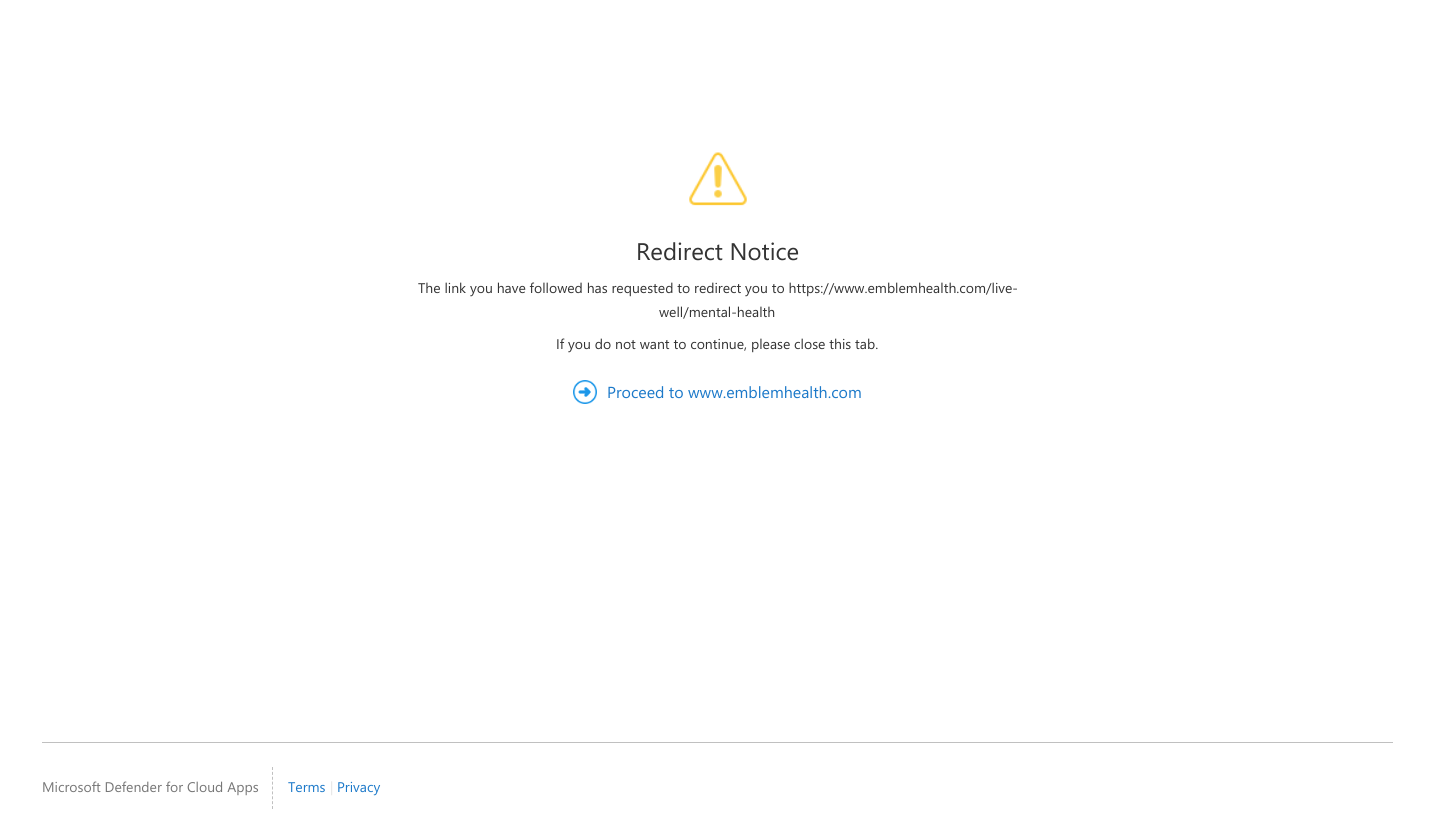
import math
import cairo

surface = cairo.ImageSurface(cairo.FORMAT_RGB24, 1435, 833)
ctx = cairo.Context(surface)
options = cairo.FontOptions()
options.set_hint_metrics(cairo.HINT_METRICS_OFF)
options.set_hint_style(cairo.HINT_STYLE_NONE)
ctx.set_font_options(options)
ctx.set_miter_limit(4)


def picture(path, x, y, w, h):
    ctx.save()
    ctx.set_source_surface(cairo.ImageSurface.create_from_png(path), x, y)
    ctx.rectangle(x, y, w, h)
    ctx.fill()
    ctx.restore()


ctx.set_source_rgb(1, 1, 1)
ctx.paint()
picture("img1.png", 689, 152, 58, 54)
ctx.select_font_face("Segoe UI")
ctx.set_font_size(24)
ctx.set_source_rgb(0.2, 0.2, 0.2)
ctx.move_to(636, 260)
ctx.show_text("Redirect Notice")
ctx.set_font_size(14)
ctx.move_to(418, 293)
ctx.show_text("The link you have followed has requested to redirect you to https://www.emblemhealth.com/live-")
ctx.move_to(659, 317)
ctx.show_text("well/mental-health")
ctx.move_to(556, 349)
ctx.show_text("If you do not want to continue, please close this tab.")
picture("img2.png", 573, 380, 24, 24)
ctx.set_font_size(16)
ctx.set_source_rgb(0.11, 0.475, 0.788)
ctx.move_to(607, 398)
ctx.show_text("Proceed to www.emblemhealth.com")
ctx.set_source_rgb(0.753, 0.753, 0.753)
ctx.rectangle(42, 742, 1351, 1)
ctx.fill()
ctx.set_font_size(14)
ctx.set_source_rgb(0.463, 0.463, 0.463)
ctx.move_to(42, 792)
ctx.show_text("Microsoft Defender for Cloud Apps")
ctx.new_path()
ctx.move_to(272.5, 767)
ctx.line_to(272.5, 809)
ctx.set_source_rgb(0.753, 0.753, 0.753)
ctx.set_line_width(1)
ctx.set_dash([3, 1.88])
ctx.stroke()
ctx.set_source_rgb(0.11, 0.475, 0.788)
ctx.move_to(288, 792)
ctx.show_text("Terms")
ctx.set_source_rgb(0.898, 0.898, 0.898)
ctx.move_to(330, 792)
ctx.show_text("|")
ctx.set_source_rgb(0.11, 0.475, 0.788)
ctx.move_to(337, 792)
ctx.show_text("Privacy")
surface.write_to_png("page.png")
